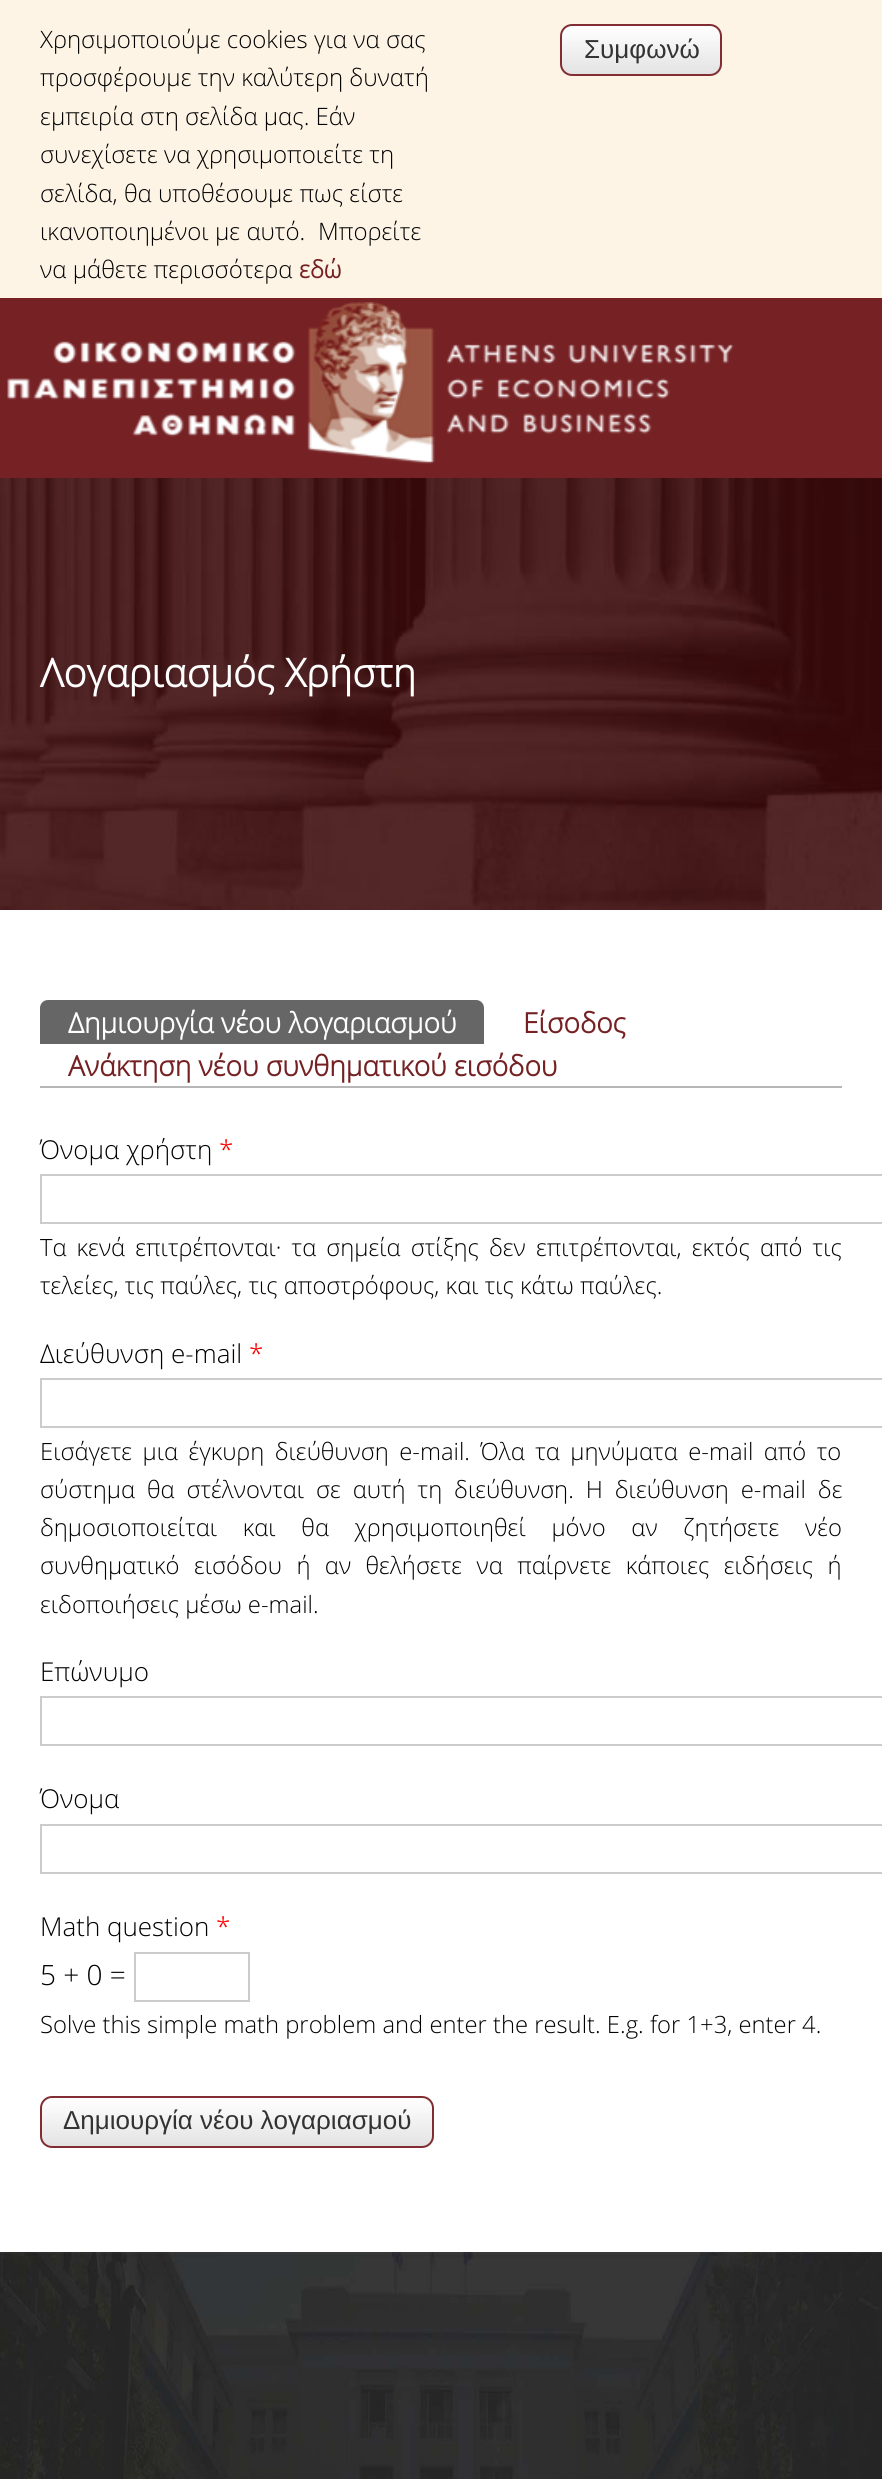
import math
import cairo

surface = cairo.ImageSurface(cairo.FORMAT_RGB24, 882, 2479)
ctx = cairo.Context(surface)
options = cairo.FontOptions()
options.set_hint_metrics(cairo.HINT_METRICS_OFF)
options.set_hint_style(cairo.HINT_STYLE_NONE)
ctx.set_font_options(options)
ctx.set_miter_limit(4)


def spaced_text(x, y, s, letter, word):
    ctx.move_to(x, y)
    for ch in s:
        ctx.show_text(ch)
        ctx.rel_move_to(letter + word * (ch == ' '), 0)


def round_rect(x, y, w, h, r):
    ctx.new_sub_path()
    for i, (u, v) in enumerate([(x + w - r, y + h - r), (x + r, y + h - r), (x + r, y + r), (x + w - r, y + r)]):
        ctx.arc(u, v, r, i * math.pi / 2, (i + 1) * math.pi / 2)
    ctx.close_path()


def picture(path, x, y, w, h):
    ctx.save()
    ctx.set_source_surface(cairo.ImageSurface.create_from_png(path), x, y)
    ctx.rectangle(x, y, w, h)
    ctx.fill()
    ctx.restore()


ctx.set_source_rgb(1, 1, 1)
ctx.paint()
ctx.set_source_rgb(0.992, 0.957, 0.902)
ctx.rectangle(0, 0, 882, 298)
ctx.fill()
ctx.select_font_face("Open Sans Light")
ctx.set_font_size(24)
ctx.set_source_rgb(0, 0, 0)
ctx.move_to(40, 48)
ctx.show_text("Χρησιμοποιούμε cookies για να σας")
ctx.move_to(40, 86)
ctx.show_text("προσφέρουμε την καλύτερη δυνατή")
ctx.move_to(40, 125)
ctx.show_text("εμπειρία στη σελίδα μας. Εάν")
ctx.move_to(40, 163)
ctx.show_text("συνεχίσετε να χρησιμοποιείτε τη")
ctx.move_to(40, 202)
ctx.show_text("σελίδα, θα υποθέσουμε πως είστε")
ctx.move_to(40, 240)
ctx.show_text("ικανοποιημένοι με αυτό.")
ctx.move_to(318, 240)
ctx.show_text("Μπορείτε")
ctx.move_to(40, 278)
ctx.show_text("να μάθετε περισσότερα")
ctx.select_font_face("Open Sans", cairo.FONT_SLANT_NORMAL, cairo.FONT_WEIGHT_BOLD)
ctx.set_source_rgb(0.459, 0.129, 0.137)
ctx.move_to(299, 278)
ctx.show_text("εδώ")
ctx.save()
round_rect(560, 24, 162, 52, 12)
ctx.clip()
gradient = cairo.LinearGradient(641, 26, 641, 74)
gradient.add_color_stop_rgba(0, 1, 1, 1, 1)
gradient.add_color_stop_rgba(1, 0.89, 0.89, 0.89, 1)
ctx.set_source(gradient)
ctx.rectangle(560, 26, 162, 48)
ctx.fill()
ctx.restore()
round_rect(561, 25, 160, 50, 11)
ctx.set_source_rgb(0.506, 0.176, 0.192)
ctx.stroke()
ctx.select_font_face("Liberation Sans")
ctx.set_font_size(26)
ctx.set_source_rgb(0.2, 0.2, 0.2)
ctx.move_to(584, 58)
ctx.show_text("Συμφωνώ")
ctx.set_source_rgb(0.463, 0.129, 0.141)
ctx.rectangle(0, 298, 882, 180)
ctx.fill()
picture("img1.png", 7, 302, 727, 162)
picture("img2.png", 0, 478, 882, 432)
ctx.select_font_face("Open Sans", cairo.FONT_SLANT_NORMAL, cairo.FONT_WEIGHT_BOLD)
ctx.set_font_size(39.25)
ctx.set_source_rgb(1, 1, 1)
ctx.move_to(40, 687)
ctx.show_text("Λογαριασμός Χρήστη")
ctx.set_source_rgb(0.718, 0.718, 0.718)
ctx.rectangle(40, 1086, 802, 2)
ctx.fill()
ctx.set_source_rgb(0.4, 0.4, 0.4)
ctx.new_path()
ctx.move_to(48, 1000)
ctx.line_to(476, 1000)
ctx.curve_to(480.5, 1000, 484, 1003.5, 484, 1008)
ctx.line_to(484, 1044)
ctx.line_to(40, 1044)
ctx.line_to(40, 1008)
ctx.curve_to(40, 1003.5, 43.5, 1000, 48, 1000)
ctx.close_path()
ctx.fill()
ctx.set_font_size(28)
ctx.set_source_rgb(1, 1, 1)
ctx.move_to(68, 1033)
ctx.show_text("Δημιουργία νέου λογαριασμού")
ctx.set_source_rgb(0.459, 0.129, 0.137)
ctx.move_to(523, 1033)
ctx.show_text("Είσοδος")
ctx.move_to(68, 1076)
ctx.show_text("Ανάκτηση νέου συνθηματικού εισόδου")
ctx.select_font_face("Open Sans Light")
ctx.set_font_size(26)
ctx.set_source_rgb(0, 0, 0)
ctx.move_to(40, 1159)
ctx.show_text("Όνομα χρήστη")
ctx.set_source_rgb(1, 0, 0)
ctx.move_to(219, 1159)
ctx.show_text("*")
ctx.rectangle(41, 1175, 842, 48)
ctx.set_source_rgb(0.8, 0.8, 0.8)
ctx.stroke()
ctx.set_font_size(23.8)
ctx.set_source_rgb(0, 0, 0)
spaced_text(40, 1256, "Τα κενά επιτρέπονται· τα σημεία στίξης δεν επιτρέπονται, εκτός από τις", 0, 3.9)
ctx.move_to(40, 1294)
ctx.show_text("τελείες, τις παύλες, τις αποστρόφους, και τις κάτω παύλες.")
ctx.set_font_size(26)
ctx.move_to(40, 1363)
ctx.show_text("Διεύθυνση e-mail")
ctx.set_source_rgb(1, 0, 0)
ctx.move_to(249, 1363)
ctx.show_text("*")
ctx.rectangle(41, 1379, 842, 48)
ctx.set_source_rgb(0.8, 0.8, 0.8)
ctx.stroke()
ctx.set_font_size(23.8)
ctx.set_source_rgb(0, 0, 0)
spaced_text(40, 1460, "Εισάγετε μια έγκυρη διεύθυνση e-mail. Όλα τα μηνύματα e-mail από το", 0, 4.25)
spaced_text(40, 1498, "σύστημα θα στέλνονται σε αυτή τη διεύθυνση. Η διεύθυνση e-mail δε", 0, 5.75)
spaced_text(40, 1536, "δημοσιοποιείται και θα χρησιμοποιηθεί μόνο αν ζητήσετε νέο", 0, 19.5)
spaced_text(40, 1574, "συνθηματικό εισόδου ή αν θελήσετε να παίρνετε κάποιες ειδήσεις ή", 0, 8.25)
ctx.move_to(40, 1613)
ctx.show_text("ειδοποιήσεις μέσω e-mail.")
ctx.set_font_size(26)
ctx.move_to(40, 1681)
ctx.show_text("Επώνυμο")
ctx.rectangle(41, 1697, 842, 48)
ctx.set_source_rgb(0.8, 0.8, 0.8)
ctx.stroke()
ctx.set_source_rgb(0, 0, 0)
ctx.move_to(40, 1808)
ctx.show_text("Όνομα")
ctx.rectangle(41, 1825, 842, 48)
ctx.set_source_rgb(0.8, 0.8, 0.8)
ctx.stroke()
ctx.set_source_rgb(0, 0, 0)
ctx.move_to(40, 1936)
ctx.show_text("Math question")
ctx.set_source_rgb(1, 0, 0)
ctx.move_to(216, 1936)
ctx.show_text("*")
ctx.set_font_size(28)
ctx.set_source_rgb(0, 0, 0)
ctx.move_to(40, 1985)
ctx.show_text("5 + 0 =")
ctx.rectangle(135, 1953, 114, 48)
ctx.set_source_rgb(0.8, 0.8, 0.8)
ctx.stroke()
ctx.set_font_size(23.8)
ctx.set_source_rgb(0, 0, 0)
ctx.move_to(40, 2033)
ctx.show_text("Solve this simple math problem and enter the result. E.g. for 1+3, enter 4.")
ctx.save()
round_rect(40, 2096, 394, 52, 12)
ctx.clip()
gradient = cairo.LinearGradient(237, 2098, 237, 2146)
gradient.add_color_stop_rgba(0, 1, 1, 1, 1)
gradient.add_color_stop_rgba(1, 0.89, 0.89, 0.89, 1)
ctx.set_source(gradient)
ctx.rectangle(40, 2098, 394, 48)
ctx.fill()
ctx.restore()
round_rect(41, 2097, 392, 50, 11)
ctx.set_source_rgb(0.506, 0.176, 0.192)
ctx.stroke()
ctx.select_font_face("Liberation Sans")
ctx.set_font_size(26)
ctx.set_source_rgb(0.2, 0.2, 0.2)
ctx.move_to(63, 2129)
ctx.show_text("Δημιουργία νέου λογαριασμού")
picture("img3.png", 0, 2252, 882, 227)
surface.write_to_png("page.png")
